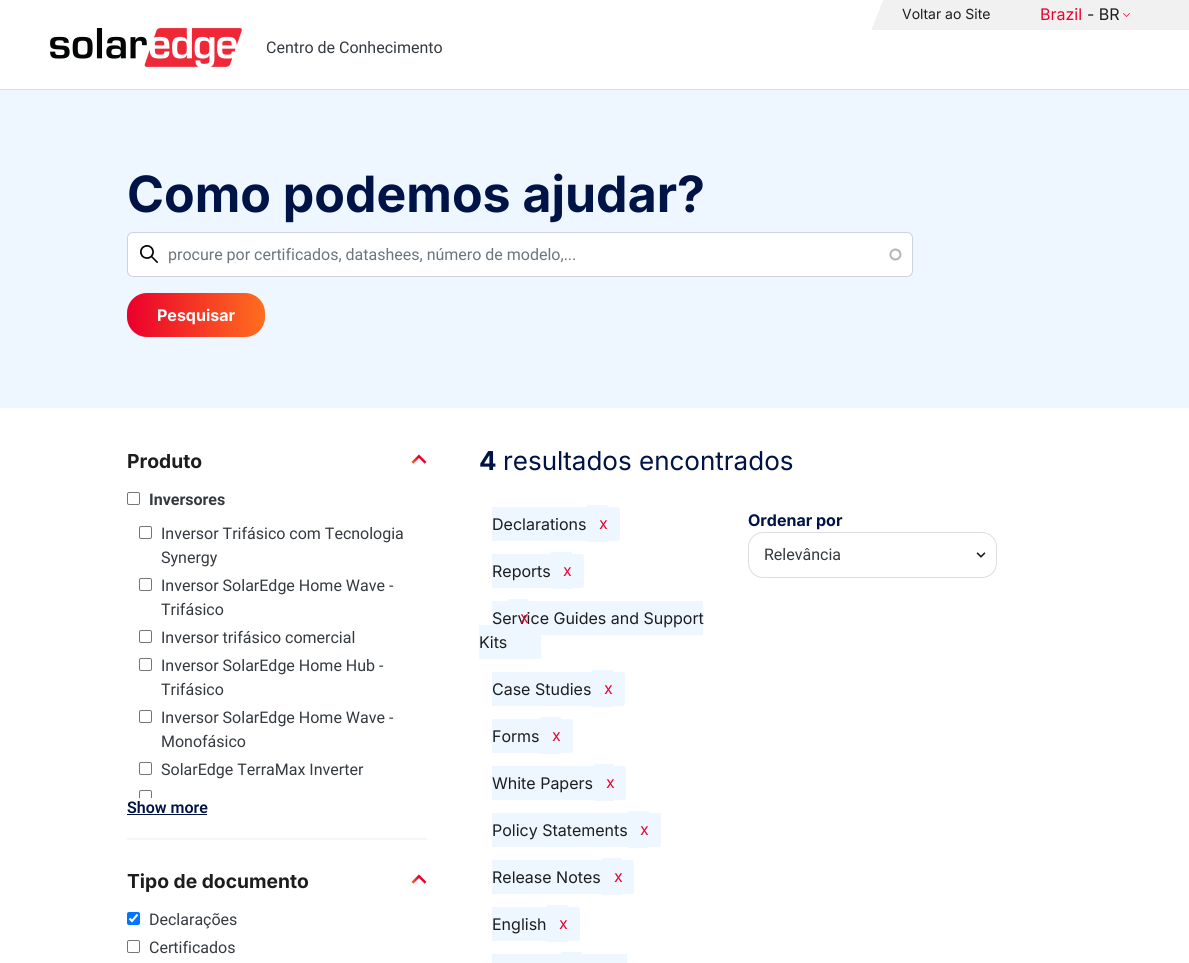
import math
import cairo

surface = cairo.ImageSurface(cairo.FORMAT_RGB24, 1189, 963)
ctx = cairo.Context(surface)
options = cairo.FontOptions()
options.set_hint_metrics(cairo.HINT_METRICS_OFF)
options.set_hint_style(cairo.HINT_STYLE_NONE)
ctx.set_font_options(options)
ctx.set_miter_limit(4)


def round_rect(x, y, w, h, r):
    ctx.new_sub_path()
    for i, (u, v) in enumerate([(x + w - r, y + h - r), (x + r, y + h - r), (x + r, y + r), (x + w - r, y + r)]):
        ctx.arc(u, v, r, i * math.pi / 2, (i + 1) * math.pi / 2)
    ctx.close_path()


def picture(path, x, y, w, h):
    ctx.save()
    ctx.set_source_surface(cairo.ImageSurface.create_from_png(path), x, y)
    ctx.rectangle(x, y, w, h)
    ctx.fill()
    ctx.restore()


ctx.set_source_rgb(1, 1, 1)
ctx.paint()
ctx.set_source_rgb(0.859, 0.859, 0.863)
ctx.rectangle(0, 89, 1189, 1)
ctx.fill()
ctx.set_source_rgb(0.945, 0.945, 0.945)
ctx.rectangle(872, 0, 317, 30)
ctx.fill()
ctx.set_source_rgb(1, 1, 1)
ctx.new_path()
ctx.move_to(872, -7)
ctx.line_to(886, -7)
ctx.line_to(872, 28)
ctx.close_path()
ctx.fill()
ctx.select_font_face("Inter")
ctx.set_font_size(14)
ctx.set_source_rgb(0.114, 0.114, 0.122)
ctx.move_to(902, 19)
ctx.show_text("Voltar ao Site")
ctx.set_font_size(16)
ctx.set_source_rgb(0.925, 0.004, 0.176)
ctx.move_to(1040, 20)
ctx.show_text("Brazil")
ctx.set_source_rgb(0.114, 0.114, 0.122)
ctx.move_to(1087, 20)
ctx.show_text("- BR")
ctx.set_source_rgb(0.925, 0.004, 0.176)
ctx.new_path()
ctx.move_to(1129.5, 13)
ctx.line_to(1130, 13.5)
ctx.line_to(1126.5, 17)
ctx.line_to(1126, 16.5)
ctx.close_path()
ctx.fill()
ctx.new_path()
ctx.move_to(1123.5, 13)
ctx.line_to(1127, 16.5)
ctx.line_to(1126.5, 17)
ctx.line_to(1123, 13.5)
ctx.close_path()
ctx.fill()
picture("img1.png", 50, 28, 192, 39)
ctx.select_font_face("Roboto")
ctx.set_source_rgb(0.204, 0.227, 0.251)
ctx.move_to(266, 53)
ctx.show_text("Centro de Conhecimento")
ctx.set_source_rgb(0.933, 0.965, 1)
ctx.rectangle(0, 90, 1189, 318)
ctx.fill()
ctx.select_font_face("Inter", cairo.FONT_SLANT_NORMAL, cairo.FONT_WEIGHT_BOLD)
ctx.set_font_size(50)
ctx.set_source_rgb(0, 0.078, 0.275)
ctx.move_to(127, 212)
ctx.show_text("Como podemos ajudar?")
ctx.set_source_rgb(1, 1, 1)
round_rect(128, 233, 784, 43, 5)
ctx.fill()
picture("img3.png", 889, 248, 13, 13)
round_rect(127.5, 232.5, 785, 44, 5.5)
ctx.set_source_rgb(0.808, 0.831, 0.855)
ctx.set_line_width(1)
ctx.stroke()
picture("img2.png", 140, 245, 18, 18)
ctx.select_font_face("Roboto")
ctx.set_font_size(16)
ctx.set_source_rgb(0.424, 0.459, 0.49)
ctx.move_to(168, 260)
ctx.show_text("procure por certificados, datashees, número de modelo,...")
gradient = cairo.LinearGradient(127, 315, 265, 315)
gradient.add_color_stop_rgba(0.01, 0.922, 0, 0.173, 1)
gradient.add_color_stop_rgba(1, 1, 0.431, 0.118, 1)
ctx.set_source(gradient)
round_rect(127, 293, 138, 44, 20)
ctx.fill()
ctx.select_font_face("Inter", cairo.FONT_SLANT_NORMAL, cairo.FONT_WEIGHT_BOLD)
ctx.set_source_rgb(1, 1, 1)
ctx.move_to(157, 321)
ctx.show_text("Pesquisar")
ctx.set_source_rgb(0.961, 0.961, 0.961)
ctx.rectangle(127, 838, 300, 2)
ctx.fill()
ctx.set_font_size(19.25)
ctx.set_source_rgb(0.114, 0.114, 0.122)
ctx.move_to(127, 468)
ctx.show_text("Produto")
picture("img4.png", 411, 454, 16, 10)
round_rect(127.5, 492.5, 12, 12, 1.5)
ctx.set_source_rgb(0.463, 0.463, 0.463)
ctx.stroke()
ctx.select_font_face("Roboto", cairo.FONT_SLANT_NORMAL, cairo.FONT_WEIGHT_BOLD)
ctx.set_font_size(16)
ctx.set_source_rgb(0.204, 0.227, 0.251)
ctx.move_to(149, 505)
ctx.show_text("Inversores")
round_rect(139.5, 526.5, 12, 12, 1.5)
ctx.set_source_rgb(0.463, 0.463, 0.463)
ctx.stroke()
ctx.select_font_face("Roboto")
ctx.set_source_rgb(0.204, 0.227, 0.251)
ctx.move_to(161, 539)
ctx.show_text("Inversor Trifásico com Tecnologia")
ctx.move_to(161, 563)
ctx.show_text("Synergy")
round_rect(139.5, 578.5, 12, 12, 1.5)
ctx.set_source_rgb(0.463, 0.463, 0.463)
ctx.stroke()
ctx.set_source_rgb(0.204, 0.227, 0.251)
ctx.move_to(161, 591)
ctx.show_text("Inversor SolarEdge Home Wave -")
ctx.move_to(161, 615)
ctx.show_text("Trifásico")
round_rect(139.5, 630.5, 12, 12, 1.5)
ctx.set_source_rgb(0.463, 0.463, 0.463)
ctx.stroke()
ctx.set_source_rgb(0.204, 0.227, 0.251)
ctx.move_to(161, 643)
ctx.show_text("Inversor trifásico comercial")
round_rect(139.5, 658.5, 12, 12, 1.5)
ctx.set_source_rgb(0.463, 0.463, 0.463)
ctx.stroke()
ctx.set_source_rgb(0.204, 0.227, 0.251)
ctx.move_to(161, 671)
ctx.show_text("Inversor SolarEdge Home Hub -")
ctx.move_to(161, 695)
ctx.show_text("Trifásico")
round_rect(139.5, 710.5, 12, 12, 1.5)
ctx.set_source_rgb(0.463, 0.463, 0.463)
ctx.stroke()
ctx.set_source_rgb(0.204, 0.227, 0.251)
ctx.move_to(161, 723)
ctx.show_text("Inversor SolarEdge Home Wave -")
ctx.move_to(161, 747)
ctx.show_text("Monofásico")
round_rect(139.5, 762.5, 12, 12, 1.5)
ctx.set_source_rgb(0.463, 0.463, 0.463)
ctx.stroke()
ctx.set_source_rgb(0.204, 0.227, 0.251)
ctx.move_to(161, 775)
ctx.show_text("SolarEdge TerraMax Inverter")
ctx.save()
ctx.rectangle(127, 512, 300, 286)
ctx.clip()
round_rect(139.5, 790.5, 12, 12, 1.5)
ctx.set_source_rgb(0.463, 0.463, 0.463)
ctx.stroke()
ctx.restore()
ctx.select_font_face("Roboto SemiBold")
ctx.set_source_rgb(0, 0.078, 0.275)
ctx.move_to(127, 813)
ctx.show_text("Show more")
ctx.rectangle(127, 814, 80, 1)
ctx.fill()
ctx.select_font_face("Inter", cairo.FONT_SLANT_NORMAL, cairo.FONT_WEIGHT_BOLD)
ctx.set_font_size(19.25)
ctx.set_source_rgb(0.114, 0.114, 0.122)
ctx.move_to(127, 888)
ctx.show_text("Tipo de documento")
picture("img4.png", 411, 874, 16, 10)
ctx.set_source_rgb(0, 0.459, 1)
round_rect(127, 912, 13, 13, 2)
ctx.fill()
ctx.new_path()
ctx.move_to(129.5, 918.5)
ctx.line_to(132, 921)
ctx.line_to(137.5, 914.5)
ctx.set_source_rgb(1, 1, 1)
ctx.set_line_width(2.1)
ctx.stroke()
ctx.select_font_face("Roboto")
ctx.set_font_size(16)
ctx.set_source_rgb(0.204, 0.227, 0.251)
ctx.move_to(149, 925)
ctx.show_text("Declarações")
round_rect(127.5, 940.5, 12, 12, 1.5)
ctx.set_source_rgb(0.463, 0.463, 0.463)
ctx.set_line_width(1)
ctx.stroke()
ctx.set_source_rgb(0.204, 0.227, 0.251)
ctx.move_to(149, 953)
ctx.show_text("Certificados")
ctx.select_font_face("Inter", cairo.FONT_SLANT_NORMAL, cairo.FONT_WEIGHT_BOLD)
ctx.set_font_size(26)
ctx.set_source_rgb(0, 0.078, 0.275)
ctx.move_to(479, 470)
ctx.show_text("4")
ctx.select_font_face("Inter")
ctx.move_to(503, 470)
ctx.show_text("resultados encontrados")
ctx.set_source_rgb(0.933, 0.965, 1)
ctx.new_path()
ctx.move_to(589, 505)
ctx.line_to(608, 505)
ctx.line_to(608, 542)
ctx.line_to(589, 542)
ctx.curve_to(587.5, 542, 586, 540.5, 586, 539)
ctx.line_to(586, 508)
ctx.curve_to(586, 506.5, 587.5, 505, 589, 505)
ctx.close_path()
ctx.fill()
ctx.set_fill_rule(cairo.FILL_RULE_EVEN_ODD)
ctx.new_path()
ctx.move_to(589, 505)
ctx.line_to(608, 505)
ctx.line_to(608, 542)
ctx.line_to(589, 542)
ctx.curve_to(587.5, 542, 586, 540.5, 586, 539)
ctx.line_to(586, 508)
ctx.curve_to(586, 506.5, 587.5, 505, 589, 505)
ctx.close_path()
ctx.move_to(589, 506)
ctx.line_to(608, 506)
ctx.line_to(608, 541)
ctx.line_to(589, 541)
ctx.curve_to(588, 541, 587, 540, 587, 539)
ctx.line_to(587, 508)
ctx.curve_to(587, 507, 588, 506, 589, 506)
ctx.close_path()
ctx.fill()
ctx.new_path()
ctx.move_to(492, 507)
ctx.line_to(617, 507)
ctx.curve_to(618.5, 507, 620, 508.5, 620, 510)
ctx.line_to(620, 538)
ctx.curve_to(620, 539.5, 618.5, 541, 617, 541)
ctx.line_to(492, 541)
ctx.close_path()
ctx.fill()
ctx.new_path()
ctx.move_to(492, 507)
ctx.line_to(617, 507)
ctx.curve_to(619, 507, 620, 508, 620, 510)
ctx.line_to(620, 538)
ctx.curve_to(620, 540, 619, 541, 617, 541)
ctx.line_to(492, 541)
ctx.close_path()
ctx.move_to(492, 508)
ctx.line_to(617, 508)
ctx.curve_to(618, 508, 619, 509, 619, 510)
ctx.line_to(619, 538)
ctx.curve_to(619, 539, 618, 540, 617, 540)
ctx.line_to(492, 540)
ctx.close_path()
ctx.fill()
ctx.set_font_size(16)
ctx.set_source_rgb(0.114, 0.114, 0.122)
ctx.move_to(492, 530)
ctx.show_text("Declarations")
ctx.set_source_rgb(0.925, 0.004, 0.176)
ctx.move_to(599, 529)
ctx.show_text("x")
ctx.set_source_rgb(0.933, 0.965, 1)
ctx.new_path()
ctx.move_to(553, 552)
ctx.line_to(572, 552)
ctx.line_to(572, 589)
ctx.line_to(553, 589)
ctx.curve_to(551.5, 589, 550, 587.5, 550, 586)
ctx.line_to(550, 555)
ctx.curve_to(550, 553.5, 551.5, 552, 553, 552)
ctx.close_path()
ctx.fill()
ctx.new_path()
ctx.move_to(553, 552)
ctx.line_to(572, 552)
ctx.line_to(572, 589)
ctx.line_to(553, 589)
ctx.curve_to(551.5, 589, 550, 587.5, 550, 586)
ctx.line_to(550, 555)
ctx.curve_to(550, 553.5, 551.5, 552, 553, 552)
ctx.close_path()
ctx.move_to(553, 553)
ctx.line_to(572, 553)
ctx.line_to(572, 588)
ctx.line_to(553, 588)
ctx.curve_to(552, 588, 551, 587, 551, 586)
ctx.line_to(551, 555)
ctx.curve_to(551, 554, 552, 553, 553, 553)
ctx.close_path()
ctx.fill()
ctx.new_path()
ctx.move_to(492, 554)
ctx.line_to(581, 554)
ctx.curve_to(582.5, 554, 584, 555.5, 584, 557)
ctx.line_to(584, 585)
ctx.curve_to(584, 586.5, 582.5, 588, 581, 588)
ctx.line_to(492, 588)
ctx.close_path()
ctx.fill()
ctx.new_path()
ctx.move_to(492, 554)
ctx.line_to(581, 554)
ctx.curve_to(583, 554, 584, 555, 584, 557)
ctx.line_to(584, 585)
ctx.curve_to(584, 587, 583, 588, 581, 588)
ctx.line_to(492, 588)
ctx.close_path()
ctx.move_to(492, 555)
ctx.line_to(581, 555)
ctx.curve_to(582, 555, 583, 556, 583, 557)
ctx.line_to(583, 585)
ctx.curve_to(583, 586, 582, 587, 581, 587)
ctx.line_to(492, 587)
ctx.close_path()
ctx.fill()
ctx.set_source_rgb(0.114, 0.114, 0.122)
ctx.move_to(492, 577)
ctx.show_text("Reports")
ctx.set_source_rgb(0.925, 0.004, 0.176)
ctx.move_to(563, 576)
ctx.show_text("x")
ctx.set_source_rgb(0.933, 0.965, 1)
ctx.new_path()
ctx.move_to(510, 599)
ctx.line_to(529, 599)
ctx.line_to(529, 636)
ctx.line_to(510, 636)
ctx.curve_to(508.5, 636, 507, 634.5, 507, 633)
ctx.line_to(507, 602)
ctx.curve_to(507, 600.5, 508.5, 599, 510, 599)
ctx.close_path()
ctx.fill()
ctx.new_path()
ctx.move_to(510, 599)
ctx.line_to(529, 599)
ctx.line_to(529, 636)
ctx.line_to(510, 636)
ctx.curve_to(508.5, 636, 507, 634.5, 507, 633)
ctx.line_to(507, 602)
ctx.curve_to(507, 600.5, 508.5, 599, 510, 599)
ctx.close_path()
ctx.move_to(510, 600)
ctx.line_to(529, 600)
ctx.line_to(529, 635)
ctx.line_to(510, 635)
ctx.curve_to(509, 635, 508, 634, 508, 633)
ctx.line_to(508, 602)
ctx.curve_to(508, 601, 509, 600, 510, 600)
ctx.close_path()
ctx.fill()
ctx.rectangle(492, 601, 211, 34)
ctx.fill()
ctx.new_path()
ctx.move_to(479, 625)
ctx.line_to(538, 625)
ctx.curve_to(539.5, 625, 541, 626.5, 541, 628)
ctx.line_to(541, 656)
ctx.curve_to(541, 657.5, 539.5, 659, 538, 659)
ctx.line_to(479, 659)
ctx.close_path()
ctx.fill()
ctx.new_path()
ctx.move_to(479, 625)
ctx.line_to(528, 625)
ctx.curve_to(545, 625, 541, 624, 541, 642)
ctx.curve_to(541, 660, 545, 659, 528, 659)
ctx.line_to(479, 659)
ctx.close_path()
ctx.move_to(479, 626)
ctx.line_to(538, 626)
ctx.curve_to(539, 626, 540, 627, 540, 628)
ctx.line_to(540, 656)
ctx.curve_to(540, 657, 539, 658, 538, 658)
ctx.line_to(479, 658)
ctx.close_path()
ctx.fill()
ctx.set_source_rgb(0.114, 0.114, 0.122)
ctx.move_to(492, 624)
ctx.show_text("Service Guides and Support")
ctx.set_source_rgb(0.925, 0.004, 0.176)
ctx.move_to(520, 623)
ctx.show_text("x")
ctx.set_source_rgb(0.114, 0.114, 0.122)
ctx.move_to(479, 648)
ctx.show_text("Kits")
ctx.set_source_rgb(0.933, 0.965, 1)
ctx.new_path()
ctx.move_to(594, 670)
ctx.line_to(613, 670)
ctx.line_to(613, 707)
ctx.line_to(594, 707)
ctx.curve_to(592.5, 707, 591, 705.5, 591, 704)
ctx.line_to(591, 673)
ctx.curve_to(591, 671.5, 592.5, 670, 594, 670)
ctx.close_path()
ctx.fill()
ctx.new_path()
ctx.move_to(594, 670)
ctx.line_to(613, 670)
ctx.line_to(613, 707)
ctx.line_to(594, 707)
ctx.curve_to(592.5, 707, 591, 705.5, 591, 704)
ctx.line_to(591, 673)
ctx.curve_to(591, 671.5, 592.5, 670, 594, 670)
ctx.close_path()
ctx.move_to(594, 671)
ctx.line_to(613, 671)
ctx.line_to(613, 706)
ctx.line_to(594, 706)
ctx.curve_to(593, 706, 592, 705, 592, 704)
ctx.line_to(592, 673)
ctx.curve_to(592, 672, 593, 671, 594, 671)
ctx.close_path()
ctx.fill()
ctx.new_path()
ctx.move_to(492, 672)
ctx.line_to(622, 672)
ctx.curve_to(623.5, 672, 625, 673.5, 625, 675)
ctx.line_to(625, 703)
ctx.curve_to(625, 704.5, 623.5, 706, 622, 706)
ctx.line_to(492, 706)
ctx.close_path()
ctx.fill()
ctx.new_path()
ctx.move_to(492, 672)
ctx.line_to(622, 672)
ctx.curve_to(624, 672, 625, 673, 625, 675)
ctx.line_to(625, 703)
ctx.curve_to(625, 705, 624, 706, 622, 706)
ctx.line_to(492, 706)
ctx.close_path()
ctx.move_to(492, 673)
ctx.line_to(622, 673)
ctx.curve_to(623, 673, 624, 674, 624, 675)
ctx.line_to(624, 703)
ctx.curve_to(624, 704, 623, 705, 622, 705)
ctx.line_to(492, 705)
ctx.close_path()
ctx.fill()
ctx.set_source_rgb(0.114, 0.114, 0.122)
ctx.move_to(492, 695)
ctx.show_text("Case Studies")
ctx.set_source_rgb(0.925, 0.004, 0.176)
ctx.move_to(604, 694)
ctx.show_text("x")
ctx.set_source_rgb(0.933, 0.965, 1)
ctx.new_path()
ctx.move_to(542, 717)
ctx.line_to(561, 717)
ctx.line_to(561, 754)
ctx.line_to(542, 754)
ctx.curve_to(540.5, 754, 539, 752.5, 539, 751)
ctx.line_to(539, 720)
ctx.curve_to(539, 718.5, 540.5, 717, 542, 717)
ctx.close_path()
ctx.fill()
ctx.new_path()
ctx.move_to(542, 717)
ctx.line_to(561, 717)
ctx.line_to(561, 754)
ctx.line_to(542, 754)
ctx.curve_to(540.5, 754, 539, 752.5, 539, 751)
ctx.line_to(539, 720)
ctx.curve_to(539, 718.5, 540.5, 717, 542, 717)
ctx.close_path()
ctx.move_to(542, 718)
ctx.line_to(561, 718)
ctx.line_to(561, 753)
ctx.line_to(542, 753)
ctx.curve_to(541, 753, 540, 752, 540, 751)
ctx.line_to(540, 720)
ctx.curve_to(540, 719, 541, 718, 542, 718)
ctx.close_path()
ctx.fill()
ctx.new_path()
ctx.move_to(492, 719)
ctx.line_to(570, 719)
ctx.curve_to(571.5, 719, 573, 720.5, 573, 722)
ctx.line_to(573, 750)
ctx.curve_to(573, 751.5, 571.5, 753, 570, 753)
ctx.line_to(492, 753)
ctx.close_path()
ctx.fill()
ctx.new_path()
ctx.move_to(492, 719)
ctx.line_to(570, 719)
ctx.curve_to(572, 719, 573, 720, 573, 722)
ctx.line_to(573, 750)
ctx.curve_to(573, 752, 572, 753, 570, 753)
ctx.line_to(492, 753)
ctx.close_path()
ctx.move_to(492, 720)
ctx.line_to(570, 720)
ctx.curve_to(571, 720, 572, 721, 572, 722)
ctx.line_to(572, 750)
ctx.curve_to(572, 751, 571, 752, 570, 752)
ctx.line_to(492, 752)
ctx.close_path()
ctx.fill()
ctx.set_source_rgb(0.114, 0.114, 0.122)
ctx.move_to(492, 742)
ctx.show_text("Forms")
ctx.set_source_rgb(0.925, 0.004, 0.176)
ctx.move_to(552, 741)
ctx.show_text("x")
ctx.set_source_rgb(0.933, 0.965, 1)
ctx.new_path()
ctx.move_to(596, 764)
ctx.line_to(614, 764)
ctx.line_to(614, 801)
ctx.line_to(596, 801)
ctx.curve_to(594.5, 801, 593, 799.5, 593, 798)
ctx.line_to(593, 767)
ctx.curve_to(593, 765.5, 594.5, 764, 596, 764)
ctx.close_path()
ctx.fill()
ctx.new_path()
ctx.move_to(596, 764)
ctx.line_to(614, 764)
ctx.line_to(614, 801)
ctx.line_to(596, 801)
ctx.curve_to(594.5, 801, 593, 799.5, 593, 798)
ctx.line_to(593, 767)
ctx.curve_to(593, 765.5, 594.5, 764, 596, 764)
ctx.close_path()
ctx.move_to(596, 765)
ctx.line_to(614, 765)
ctx.line_to(614, 800)
ctx.line_to(596, 800)
ctx.curve_to(595, 800, 594, 799, 594, 798)
ctx.line_to(594, 767)
ctx.curve_to(594, 766, 595, 765, 596, 765)
ctx.close_path()
ctx.fill()
ctx.new_path()
ctx.move_to(492, 766)
ctx.line_to(623, 766)
ctx.curve_to(624.5, 766, 626, 767.5, 626, 769)
ctx.line_to(626, 797)
ctx.curve_to(626, 798.5, 624.5, 800, 623, 800)
ctx.line_to(492, 800)
ctx.close_path()
ctx.fill()
ctx.new_path()
ctx.move_to(492, 766)
ctx.line_to(623, 766)
ctx.curve_to(625, 766, 626, 767, 626, 769)
ctx.line_to(626, 797)
ctx.curve_to(626, 799, 625, 800, 623, 800)
ctx.line_to(492, 800)
ctx.close_path()
ctx.move_to(492, 767)
ctx.line_to(623, 767)
ctx.curve_to(624, 767, 625, 768, 625, 769)
ctx.line_to(625, 797)
ctx.curve_to(625, 798, 624, 799, 623, 799)
ctx.line_to(492, 799)
ctx.close_path()
ctx.fill()
ctx.set_source_rgb(0.114, 0.114, 0.122)
ctx.move_to(492, 789)
ctx.show_text("White Papers")
ctx.set_source_rgb(0.925, 0.004, 0.176)
ctx.move_to(606, 788)
ctx.show_text("x")
ctx.set_source_rgb(0.933, 0.965, 1)
ctx.new_path()
ctx.move_to(630, 811)
ctx.line_to(649, 811)
ctx.line_to(649, 848)
ctx.line_to(630, 848)
ctx.curve_to(628.5, 848, 627, 846.5, 627, 845)
ctx.line_to(627, 814)
ctx.curve_to(627, 812.5, 628.5, 811, 630, 811)
ctx.close_path()
ctx.fill()
ctx.new_path()
ctx.move_to(630, 811)
ctx.line_to(649, 811)
ctx.line_to(649, 848)
ctx.line_to(630, 848)
ctx.curve_to(628.5, 848, 627, 846.5, 627, 845)
ctx.line_to(627, 814)
ctx.curve_to(627, 812.5, 628.5, 811, 630, 811)
ctx.close_path()
ctx.move_to(630, 812)
ctx.line_to(649, 812)
ctx.line_to(649, 847)
ctx.line_to(630, 847)
ctx.curve_to(629, 847, 628, 846, 628, 845)
ctx.line_to(628, 814)
ctx.curve_to(628, 813, 629, 812, 630, 812)
ctx.close_path()
ctx.fill()
ctx.new_path()
ctx.move_to(492, 813)
ctx.line_to(658, 813)
ctx.curve_to(659.5, 813, 661, 814.5, 661, 816)
ctx.line_to(661, 844)
ctx.curve_to(661, 845.5, 659.5, 847, 658, 847)
ctx.line_to(492, 847)
ctx.close_path()
ctx.fill()
ctx.new_path()
ctx.move_to(492, 813)
ctx.line_to(658, 813)
ctx.curve_to(660, 813, 661, 814, 661, 816)
ctx.line_to(661, 844)
ctx.curve_to(661, 846, 660, 847, 658, 847)
ctx.line_to(492, 847)
ctx.close_path()
ctx.move_to(492, 814)
ctx.line_to(658, 814)
ctx.curve_to(659, 814, 660, 815, 660, 816)
ctx.line_to(660, 844)
ctx.curve_to(660, 845, 659, 846, 658, 846)
ctx.line_to(492, 846)
ctx.close_path()
ctx.fill()
ctx.set_source_rgb(0.114, 0.114, 0.122)
ctx.move_to(492, 836)
ctx.show_text("Policy Statements")
ctx.set_source_rgb(0.925, 0.004, 0.176)
ctx.move_to(640, 835)
ctx.show_text("x")
ctx.set_source_rgb(0.933, 0.965, 1)
ctx.new_path()
ctx.move_to(604, 858)
ctx.line_to(622, 858)
ctx.line_to(622, 895)
ctx.line_to(604, 895)
ctx.curve_to(602.5, 895, 601, 893.5, 601, 892)
ctx.line_to(601, 861)
ctx.curve_to(601, 859.5, 602.5, 858, 604, 858)
ctx.close_path()
ctx.fill()
ctx.new_path()
ctx.move_to(604, 858)
ctx.line_to(622, 858)
ctx.line_to(622, 895)
ctx.line_to(604, 895)
ctx.curve_to(602.5, 895, 601, 893.5, 601, 892)
ctx.line_to(601, 861)
ctx.curve_to(601, 859.5, 602.5, 858, 604, 858)
ctx.close_path()
ctx.move_to(604, 859)
ctx.line_to(622, 859)
ctx.line_to(622, 894)
ctx.line_to(604, 894)
ctx.curve_to(603, 894, 602, 893, 602, 892)
ctx.line_to(602, 861)
ctx.curve_to(602, 860, 603, 859, 604, 859)
ctx.close_path()
ctx.fill()
ctx.new_path()
ctx.move_to(492, 860)
ctx.line_to(631, 860)
ctx.curve_to(632.5, 860, 634, 861.5, 634, 863)
ctx.line_to(634, 891)
ctx.curve_to(634, 892.5, 632.5, 894, 631, 894)
ctx.line_to(492, 894)
ctx.close_path()
ctx.fill()
ctx.new_path()
ctx.move_to(492, 860)
ctx.line_to(631, 860)
ctx.curve_to(633, 860, 634, 861, 634, 863)
ctx.line_to(634, 891)
ctx.curve_to(634, 893, 633, 894, 631, 894)
ctx.line_to(492, 894)
ctx.close_path()
ctx.move_to(492, 861)
ctx.line_to(631, 861)
ctx.curve_to(632, 861, 633, 862, 633, 863)
ctx.line_to(633, 891)
ctx.curve_to(633, 892, 632, 893, 631, 893)
ctx.line_to(492, 893)
ctx.close_path()
ctx.fill()
ctx.set_source_rgb(0.114, 0.114, 0.122)
ctx.move_to(492, 883)
ctx.show_text("Release Notes")
ctx.set_source_rgb(0.925, 0.004, 0.176)
ctx.move_to(614, 882)
ctx.show_text("x")
ctx.set_source_rgb(0.933, 0.965, 1)
ctx.new_path()
ctx.move_to(549, 905)
ctx.line_to(568, 905)
ctx.line_to(568, 942)
ctx.line_to(549, 942)
ctx.curve_to(547.5, 942, 546, 940.5, 546, 939)
ctx.line_to(546, 908)
ctx.curve_to(546, 906.5, 547.5, 905, 549, 905)
ctx.close_path()
ctx.fill()
ctx.new_path()
ctx.move_to(549, 905)
ctx.line_to(568, 905)
ctx.line_to(568, 942)
ctx.line_to(549, 942)
ctx.curve_to(547.5, 942, 546, 940.5, 546, 939)
ctx.line_to(546, 908)
ctx.curve_to(546, 906.5, 547.5, 905, 549, 905)
ctx.close_path()
ctx.move_to(549, 906)
ctx.line_to(568, 906)
ctx.line_to(568, 941)
ctx.line_to(549, 941)
ctx.curve_to(548, 941, 547, 940, 547, 939)
ctx.line_to(547, 908)
ctx.curve_to(547, 907, 548, 906, 549, 906)
ctx.close_path()
ctx.fill()
ctx.new_path()
ctx.move_to(492, 907)
ctx.line_to(577, 907)
ctx.curve_to(578.5, 907, 580, 908.5, 580, 910)
ctx.line_to(580, 938)
ctx.curve_to(580, 939.5, 578.5, 941, 577, 941)
ctx.line_to(492, 941)
ctx.close_path()
ctx.fill()
ctx.new_path()
ctx.move_to(492, 907)
ctx.line_to(577, 907)
ctx.curve_to(579, 907, 580, 908, 580, 910)
ctx.line_to(580, 938)
ctx.curve_to(580, 940, 579, 941, 577, 941)
ctx.line_to(492, 941)
ctx.close_path()
ctx.move_to(492, 908)
ctx.line_to(577, 908)
ctx.curve_to(578, 908, 579, 909, 579, 910)
ctx.line_to(579, 938)
ctx.curve_to(579, 939, 578, 940, 577, 940)
ctx.line_to(492, 940)
ctx.close_path()
ctx.fill()
ctx.set_source_rgb(0.114, 0.114, 0.122)
ctx.move_to(492, 930)
ctx.show_text("English")
ctx.set_source_rgb(0.925, 0.004, 0.176)
ctx.move_to(559, 929)
ctx.show_text("x")
ctx.set_source_rgb(0.933, 0.965, 1)
ctx.new_path()
ctx.move_to(563, 952)
ctx.line_to(582, 952)
ctx.line_to(582, 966)
ctx.line_to(563, 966)
ctx.curve_to(561.5, 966, 560, 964.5, 560, 963)
ctx.line_to(560, 955)
ctx.curve_to(560, 953.5, 561.5, 952, 563, 952)
ctx.close_path()
ctx.fill()
ctx.new_path()
ctx.move_to(563, 952)
ctx.line_to(582, 952)
ctx.line_to(582, 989)
ctx.line_to(563, 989)
ctx.curve_to(561.5, 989, 560, 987.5, 560, 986)
ctx.line_to(560, 955)
ctx.curve_to(560, 953.5, 561.5, 952, 563, 952)
ctx.close_path()
ctx.move_to(563, 953)
ctx.line_to(582, 953)
ctx.line_to(582, 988)
ctx.line_to(563, 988)
ctx.curve_to(562, 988, 561, 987, 561, 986)
ctx.line_to(561, 955)
ctx.curve_to(561, 954, 562, 953, 563, 953)
ctx.close_path()
ctx.fill()
ctx.rectangle(492, 954, 135, 9)
ctx.fill()
ctx.select_font_face("Inter", cairo.FONT_SLANT_NORMAL, cairo.FONT_WEIGHT_BOLD)
ctx.set_source_rgb(0, 0.078, 0.275)
ctx.move_to(748, 526)
ctx.show_text("Ordenar por")
picture("img5.png", 976, 552, 10, 6)
round_rect(748.5, 532.5, 248, 45, 14.5)
ctx.set_source_rgb(0.867, 0.867, 0.867)
ctx.stroke()
ctx.select_font_face("Roboto")
ctx.set_source_rgb(0.204, 0.227, 0.251)
ctx.move_to(764, 560)
ctx.show_text("Relevância")
surface.write_to_png("page.png")
